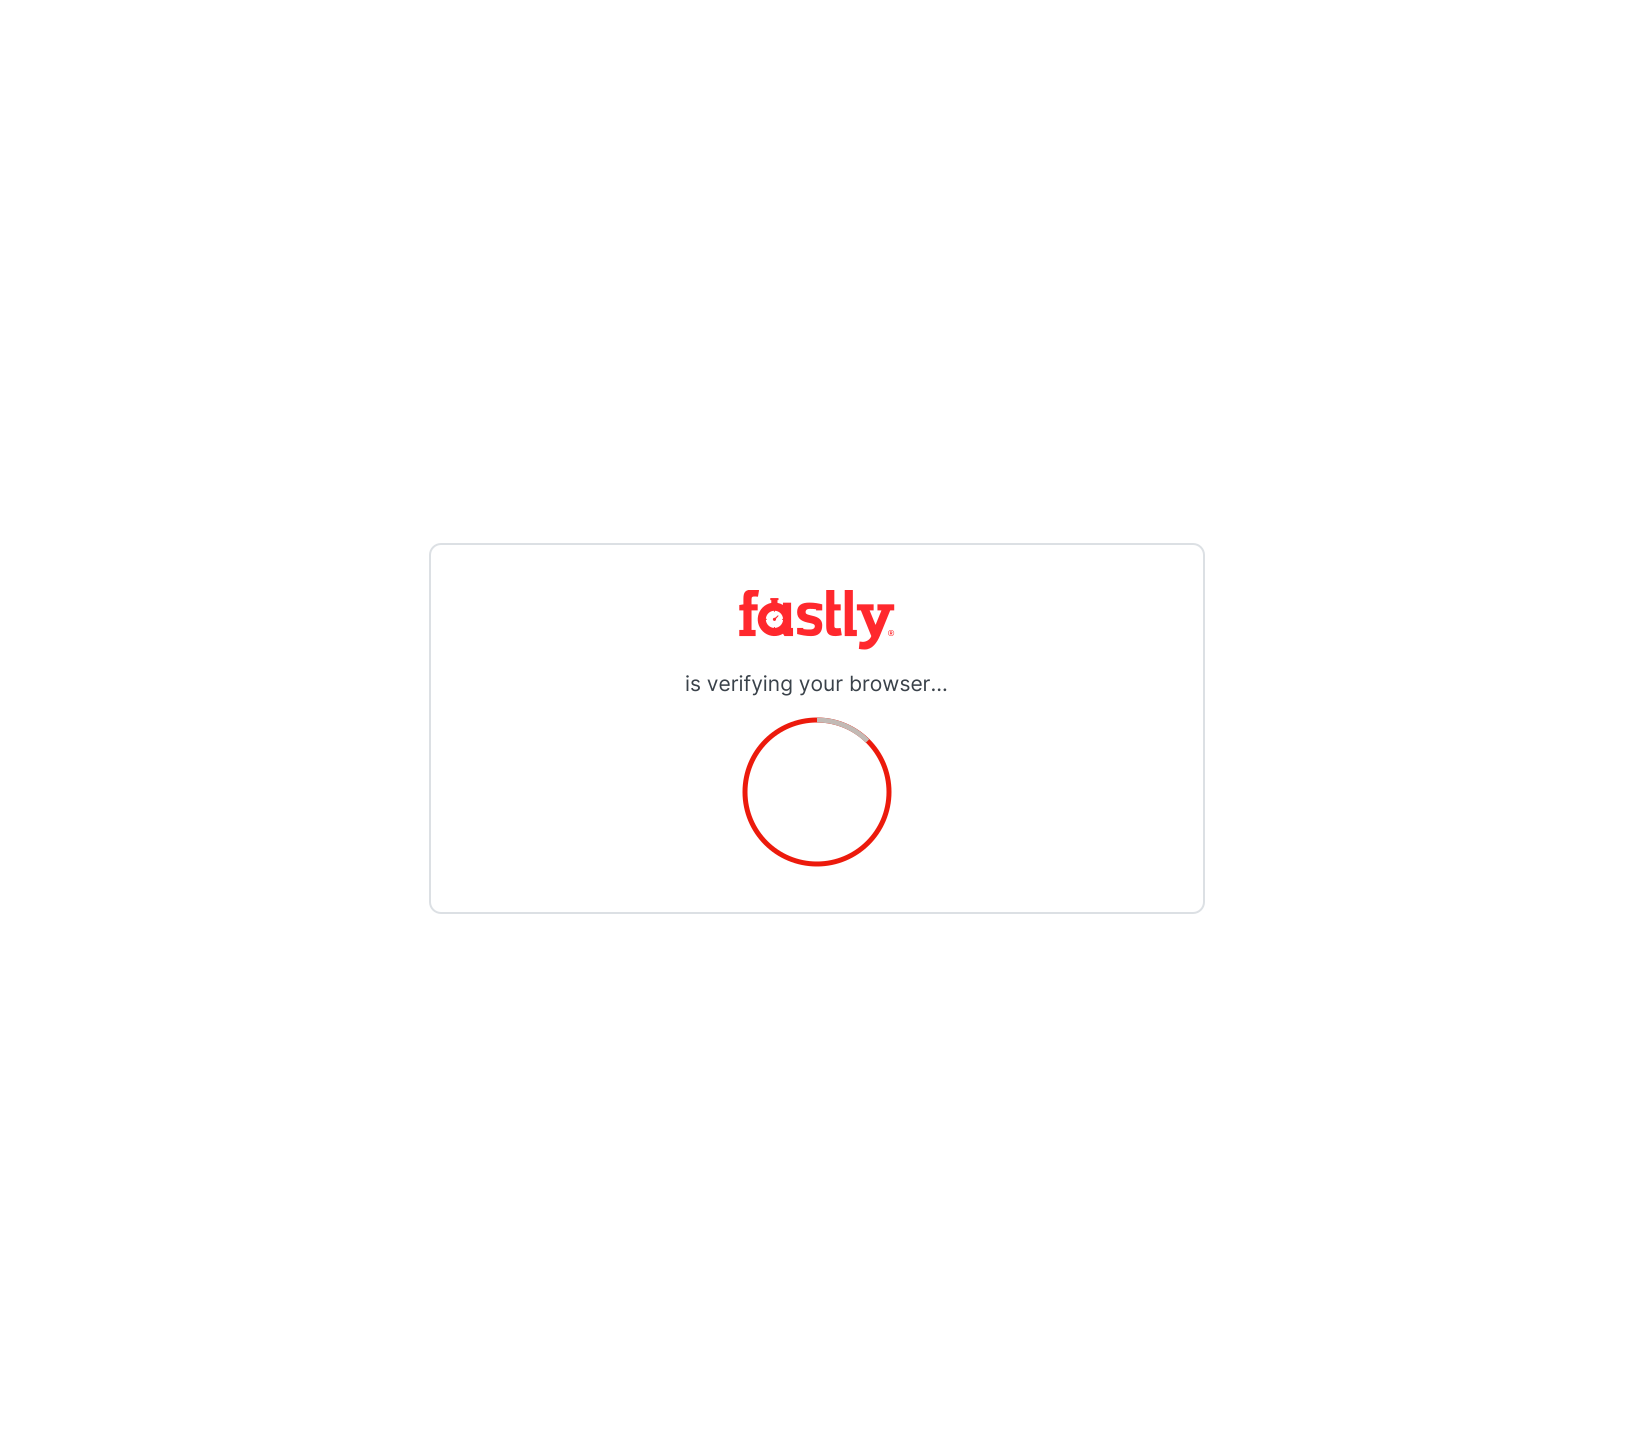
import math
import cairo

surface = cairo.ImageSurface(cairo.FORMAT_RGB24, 1632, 1455)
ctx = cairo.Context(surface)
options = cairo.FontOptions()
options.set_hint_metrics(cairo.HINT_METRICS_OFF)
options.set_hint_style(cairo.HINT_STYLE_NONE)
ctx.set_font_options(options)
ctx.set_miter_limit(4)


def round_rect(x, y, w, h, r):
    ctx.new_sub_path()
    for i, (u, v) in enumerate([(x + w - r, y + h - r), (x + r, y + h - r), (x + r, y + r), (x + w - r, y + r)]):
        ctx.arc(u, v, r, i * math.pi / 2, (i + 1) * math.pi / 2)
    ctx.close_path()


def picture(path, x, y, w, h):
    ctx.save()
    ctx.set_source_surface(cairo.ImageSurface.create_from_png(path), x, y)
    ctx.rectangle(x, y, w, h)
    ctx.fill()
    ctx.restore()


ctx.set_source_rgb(1, 1, 1)
ctx.paint()
round_rect(430, 544, 774, 369, 11)
ctx.set_source_rgb(0.863, 0.878, 0.894)
ctx.stroke()
picture("img1.png", 739, 590, 156, 60)
ctx.select_font_face("Inter")
ctx.set_font_size(21)
ctx.set_source_rgb(0.227, 0.259, 0.29)
ctx.move_to(685, 691)
ctx.show_text("is verifying your browser...")
ctx.new_path()
ctx.move_to(745, 792)
ctx.curve_to(745, 752, 777, 720, 817, 720)
ctx.curve_to(856.5, 720, 889, 752, 889, 792)
ctx.curve_to(889, 832, 856.5, 864, 817, 864)
ctx.curve_to(777, 864, 745, 832, 745, 792)
ctx.close_path()
ctx.set_source_rgb(0.922, 0.102, 0.047)
ctx.set_line_width(5)
ctx.stroke()
ctx.new_path()
ctx.move_to(867.5, 741)
ctx.curve_to(854, 727.5, 836, 720, 817, 720)
ctx.set_source_rgb(0.761, 0.729, 0.71)
ctx.stroke()
surface.write_to_png("page.png")
